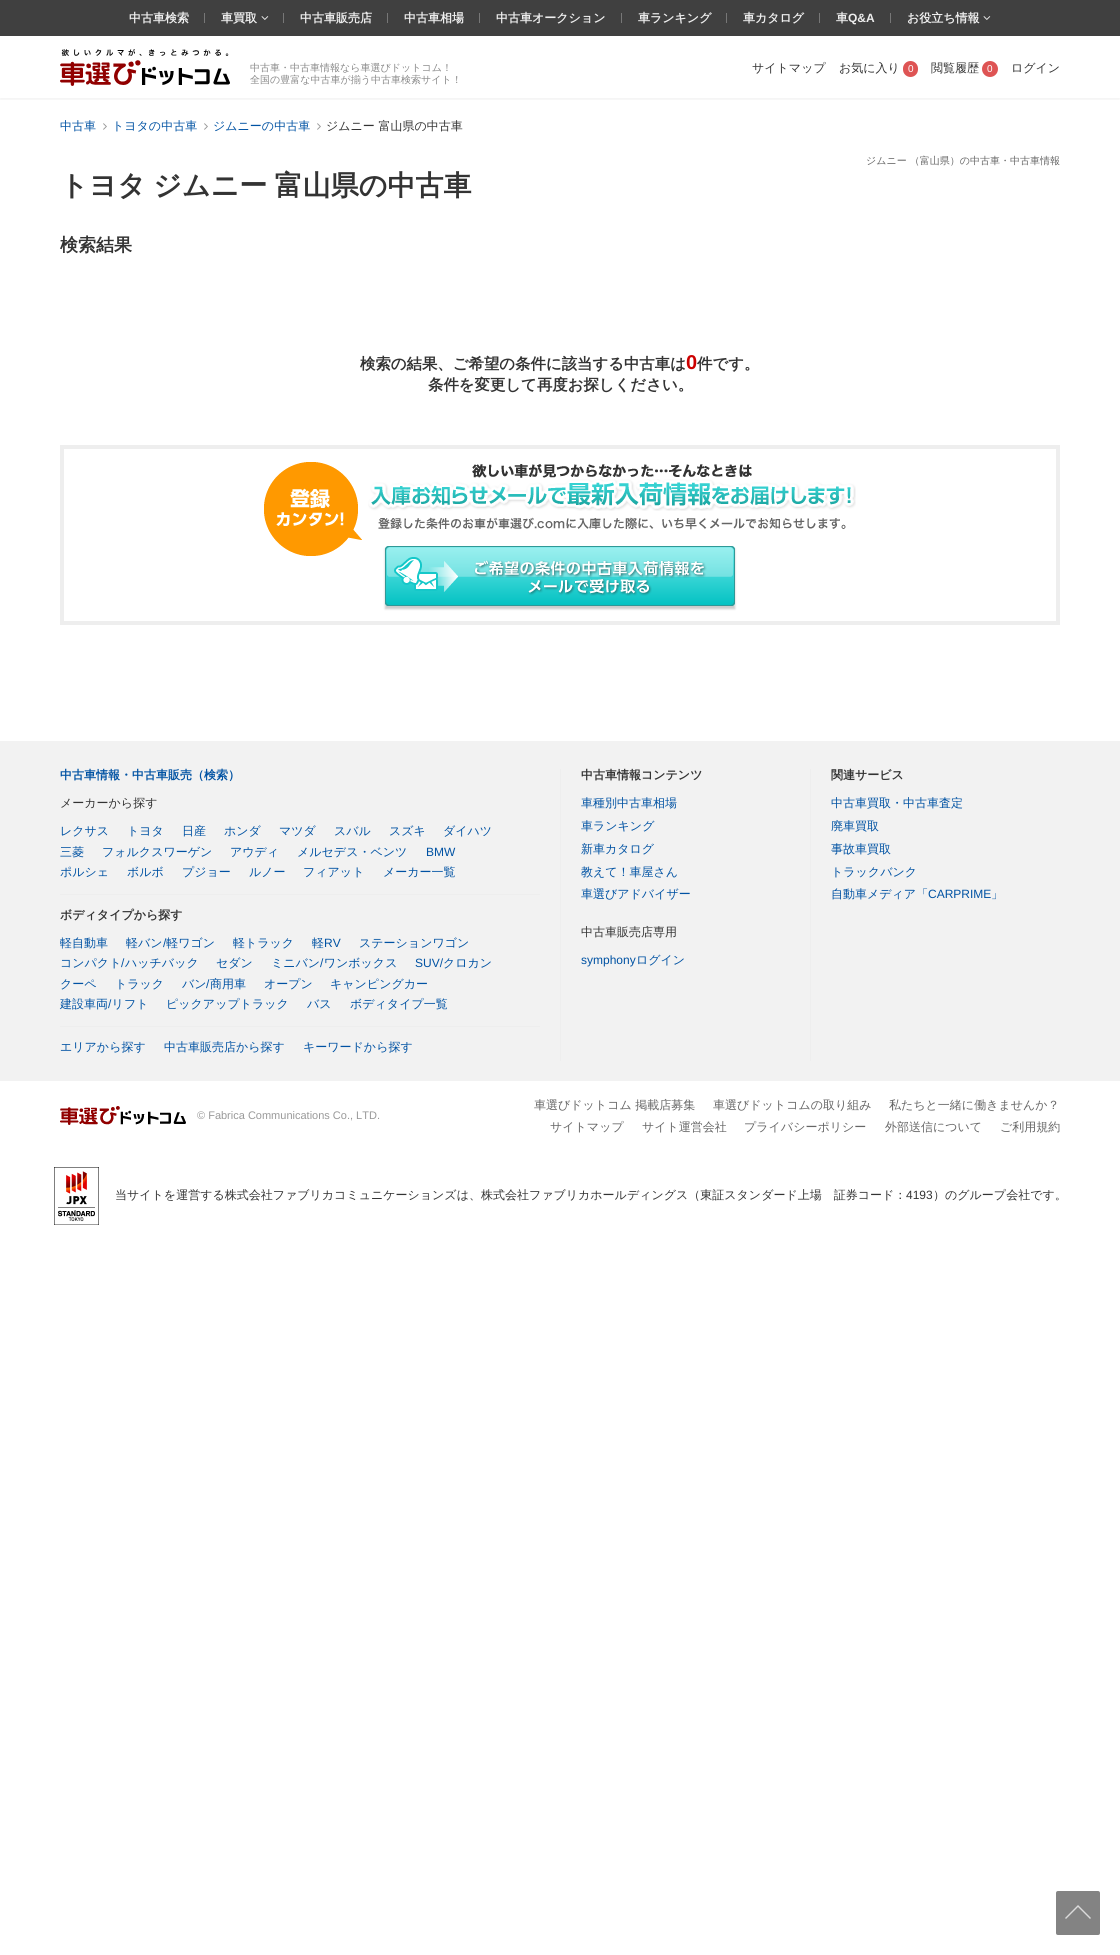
import math
import cairo

surface = cairo.ImageSurface(cairo.FORMAT_RGB24, 1120, 1955)
ctx = cairo.Context(surface)
options = cairo.FontOptions()
options.set_hint_metrics(cairo.HINT_METRICS_OFF)
options.set_hint_style(cairo.HINT_STYLE_NONE)
ctx.set_font_options(options)
ctx.set_miter_limit(4)


def spaced_text(x, y, s, letter, word):
    ctx.move_to(x, y)
    for ch in s:
        ctx.show_text(ch)
        ctx.rel_move_to(letter + word * (ch == ' '), 0)


def round_rect(x, y, w, h, r):
    ctx.new_sub_path()
    for i, (u, v) in enumerate([(x + w - r, y + h - r), (x + r, y + h - r), (x + r, y + r), (x + w - r, y + r)]):
        ctx.arc(u, v, r, i * math.pi / 2, (i + 1) * math.pi / 2)
    ctx.close_path()


def shadow(x, y, w, h, r, blur, alpha):
    ctx.push_group_with_content(cairo.CONTENT_ALPHA)
    ctx.set_operator(cairo.OPERATOR_SOURCE)
    for i in range(15, -16, -2):
        e = blur * i / 6
        if min(w, h) + 2 * e > 0:
            ctx.set_source_rgba(0, 0, 0, alpha * math.erfc((i - 1) / 8.5) / 2)
            round_rect(x - e, y - e, w + 2 * e, h + 2 * e, max(0, min(r + e + blur * .6, min(w, h) / 2 + e)))
            ctx.fill()
    ctx.mask(ctx.pop_group())


def picture(path, x, y, w, h):
    ctx.save()
    ctx.set_source_surface(cairo.ImageSurface.create_from_png(path), x, y)
    ctx.rectangle(x, y, w, h)
    ctx.fill()
    ctx.restore()


ctx.set_source_rgb(1, 1, 1)
ctx.paint()
ctx.save()
ctx.rectangle(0, 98, 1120, 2)
ctx.clip()
ctx.set_source_rgb(0, 0, 0)
shadow(0, 38, 1120, 62, 0, 1.5, 0.05)
ctx.restore()
ctx.set_source_rgb(0.251, 0.251, 0.251)
ctx.rectangle(0, 0, 1120, 36)
ctx.fill()
ctx.select_font_face("WenQuanYi Zen Hei", cairo.FONT_SLANT_NORMAL, cairo.FONT_WEIGHT_BOLD)
ctx.set_font_size(12)
ctx.set_source_rgb(0.933, 0.933, 0.933)
ctx.move_to(129, 22)
ctx.show_text("中古車検索")
ctx.set_source_rgb(0.467, 0.467, 0.467)
ctx.rectangle(204, 13, 1, 10)
ctx.fill()
ctx.set_source_rgb(0.933, 0.933, 0.933)
ctx.move_to(221, 22)
ctx.show_text("車買取")
picture("img1.png", 261, 16, 8, 4)
ctx.set_source_rgb(0.467, 0.467, 0.467)
ctx.rectangle(283, 13, 1, 10)
ctx.fill()
ctx.set_source_rgb(0.933, 0.933, 0.933)
ctx.move_to(300, 22)
ctx.show_text("中古車販売店")
ctx.set_source_rgb(0.467, 0.467, 0.467)
ctx.rectangle(387, 13, 1, 10)
ctx.fill()
ctx.set_source_rgb(0.933, 0.933, 0.933)
ctx.move_to(404, 22)
ctx.show_text("中古車相場")
ctx.set_source_rgb(0.467, 0.467, 0.467)
ctx.rectangle(479, 13, 1, 10)
ctx.fill()
ctx.set_source_rgb(0.933, 0.933, 0.933)
ctx.move_to(496, 22)
ctx.show_text("中古車オークション")
ctx.set_source_rgb(0.467, 0.467, 0.467)
ctx.rectangle(621, 13, 1, 10)
ctx.fill()
ctx.set_source_rgb(0.933, 0.933, 0.933)
ctx.move_to(638, 22)
ctx.show_text("車ランキング")
ctx.set_source_rgb(0.467, 0.467, 0.467)
ctx.rectangle(726, 13, 1, 10)
ctx.fill()
ctx.set_source_rgb(0.933, 0.933, 0.933)
ctx.move_to(743, 22)
ctx.show_text("車カタログ")
ctx.set_source_rgb(0.467, 0.467, 0.467)
ctx.rectangle(819, 13, 1, 10)
ctx.fill()
ctx.set_source_rgb(0.933, 0.933, 0.933)
ctx.move_to(836, 22)
ctx.show_text("車")
ctx.select_font_face("Liberation Sans", cairo.FONT_SLANT_NORMAL, cairo.FONT_WEIGHT_BOLD)
ctx.move_to(848, 22)
ctx.show_text("Q&A")
ctx.set_source_rgb(0.467, 0.467, 0.467)
ctx.rectangle(890, 13, 1, 10)
ctx.fill()
ctx.select_font_face("WenQuanYi Zen Hei", cairo.FONT_SLANT_NORMAL, cairo.FONT_WEIGHT_BOLD)
ctx.set_source_rgb(0.933, 0.933, 0.933)
ctx.move_to(907, 22)
ctx.show_text("お役立ち情報")
picture("img1.png", 983, 16, 8, 4)
picture("img2.png", 60, 49, 170, 37)
ctx.select_font_face("WenQuanYi Zen Hei Medium")
ctx.set_font_size(10)
ctx.set_source_rgb(0.533, 0.533, 0.533)
ctx.move_to(250, 71)
ctx.show_text("中古車・中古車情報なら車選びドットコム！")
ctx.move_to(250, 83)
ctx.show_text("全国の豊富な中古車が揃う中古車検索サイト！")
ctx.set_font_size(12)
ctx.set_source_rgb(0.2, 0.2, 0.2)
ctx.move_to(752, 72)
ctx.show_text("サイトマップ")
ctx.move_to(839, 72)
ctx.show_text("お気に入り")
ctx.set_source_rgb(0.871, 0.329, 0.329)
round_rect(903, 61, 15, 16, 7.5)
ctx.fill()
ctx.select_font_face("Liberation Sans")
ctx.set_font_size(10)
ctx.set_source_rgb(1, 1, 1)
ctx.move_to(908, 72)
ctx.show_text("0")
ctx.select_font_face("WenQuanYi Zen Hei Medium")
ctx.set_font_size(12)
ctx.set_source_rgb(0.2, 0.2, 0.2)
ctx.move_to(931, 72)
ctx.show_text("閲覧履歴")
ctx.set_source_rgb(0.871, 0.329, 0.329)
ctx.new_path()
ctx.arc(990, 69, 8, 0, 2 * math.pi)
ctx.fill()
ctx.select_font_face("Liberation Sans")
ctx.set_font_size(10)
ctx.set_source_rgb(1, 1, 1)
ctx.move_to(987, 72)
ctx.show_text("0")
ctx.select_font_face("WenQuanYi Zen Hei Medium")
ctx.set_font_size(12)
ctx.set_source_rgb(0.2, 0.2, 0.2)
ctx.move_to(1011, 72)
ctx.show_text("ログイン")
ctx.set_source_rgb(0, 0.322, 0.639)
ctx.move_to(60, 130)
ctx.show_text("中古車")
picture("img3.png", 103, 123, 4, 7)
ctx.move_to(112, 130)
ctx.show_text("トヨタの中古車")
picture("img3.png", 204, 123, 4, 7)
ctx.move_to(213, 130)
ctx.show_text("ジムニーの中古車")
picture("img3.png", 317, 123, 4, 7)
ctx.set_source_rgb(0.2, 0.2, 0.2)
ctx.move_to(326, 130)
ctx.show_text("ジムニー 富山県の中古車")
ctx.set_font_size(10)
ctx.set_source_rgb(0.4, 0.4, 0.4)
ctx.move_to(866, 164)
ctx.show_text("ジムニー （富山県）の中古車・中古車情報")
ctx.select_font_face("WenQuanYi Zen Hei", cairo.FONT_SLANT_NORMAL, cairo.FONT_WEIGHT_BOLD)
ctx.set_font_size(28)
ctx.set_source_rgb(0.2, 0.2, 0.2)
spaced_text(60, 195, "トヨタ ジムニー 富山県の中古車", 0, -1)
ctx.set_font_size(18)
ctx.move_to(60, 251)
ctx.show_text("検索結果")
ctx.set_font_size(15.4)
ctx.move_to(360, 369)
ctx.show_text("検索の結果、ご希望の条件に該当する中古車は")
ctx.select_font_face("Liberation Sans", cairo.FONT_SLANT_NORMAL, cairo.FONT_WEIGHT_BOLD)
ctx.set_font_size(20)
ctx.set_source_rgb(0.8, 0, 0)
ctx.move_to(686, 369)
ctx.show_text("0")
ctx.select_font_face("WenQuanYi Zen Hei", cairo.FONT_SLANT_NORMAL, cairo.FONT_WEIGHT_BOLD)
ctx.set_font_size(15.4)
ctx.set_source_rgb(0.2, 0.2, 0.2)
ctx.move_to(697, 369)
ctx.show_text("件です。")
ctx.move_to(428, 390)
ctx.show_text("条件を変更して再度お探しください。")
ctx.rectangle(62, 447, 996, 176)
ctx.set_source_rgb(0.933, 0.933, 0.933)
ctx.set_line_width(4)
ctx.stroke()
picture("img4.png", 264, 462, 592, 94)
ctx.set_source_rgb(0.8, 0.8, 0.8)
shadow(385, 549, 350, 60, 0, 1, 1)
picture("img5.png", 385, 546, 350, 60)
ctx.set_source_rgb(0.949, 0.949, 0.949)
ctx.rectangle(0, 741, 1120, 340)
ctx.fill()
ctx.set_font_size(12)
ctx.set_source_rgb(0, 0.322, 0.639)
ctx.move_to(60, 779)
ctx.show_text("中古車情報・中古車販売（検索）")
ctx.set_source_rgb(0.933, 0.933, 0.933)
ctx.rectangle(60, 894, 480, 1)
ctx.fill()
ctx.select_font_face("WenQuanYi Zen Hei Medium")
ctx.set_source_rgb(0.2, 0.2, 0.2)
ctx.move_to(60, 807)
ctx.show_text("メーカーから探す")
ctx.set_source_rgb(0, 0.322, 0.639)
ctx.move_to(60, 835)
ctx.show_text("レクサス")
ctx.move_to(127, 835)
ctx.show_text("トヨタ")
ctx.move_to(182, 835)
ctx.show_text("日産")
ctx.move_to(224, 835)
ctx.show_text("ホンダ")
ctx.move_to(279, 835)
ctx.show_text("マツダ")
ctx.move_to(334, 835)
ctx.show_text("スバル")
ctx.move_to(389, 835)
ctx.show_text("スズキ")
ctx.move_to(443, 835)
ctx.show_text("ダイハツ")
ctx.move_to(60, 856)
ctx.show_text("三菱")
ctx.move_to(102, 856)
ctx.show_text("フォルクスワーゲン")
ctx.move_to(230, 856)
ctx.show_text("アウディ")
ctx.move_to(297, 856)
ctx.show_text("メルセデス・ベンツ")
ctx.select_font_face("Liberation Sans")
ctx.move_to(426, 856)
ctx.show_text("BMW")
ctx.select_font_face("WenQuanYi Zen Hei Medium")
ctx.move_to(60, 876)
ctx.show_text("ポルシェ")
ctx.move_to(127, 876)
ctx.show_text("ボルボ")
ctx.move_to(182, 876)
ctx.show_text("プジョー")
ctx.move_to(249, 876)
ctx.show_text("ルノー")
ctx.move_to(303, 876)
ctx.show_text("フィアット")
ctx.move_to(383, 876)
ctx.show_text("メーカー一覧")
ctx.set_source_rgb(0.933, 0.933, 0.933)
ctx.rectangle(60, 1026, 480, 1)
ctx.fill()
ctx.select_font_face("WenQuanYi Zen Hei", cairo.FONT_SLANT_NORMAL, cairo.FONT_WEIGHT_BOLD)
ctx.set_source_rgb(0.2, 0.2, 0.2)
ctx.move_to(60, 919)
ctx.show_text("ボディタイプから探す")
ctx.select_font_face("WenQuanYi Zen Hei Medium")
ctx.set_source_rgb(0, 0.322, 0.639)
ctx.move_to(60, 947)
ctx.show_text("軽自動車")
ctx.move_to(126, 947)
ctx.show_text("軽バン 軽ワゴン")
ctx.select_font_face("Liberation Sans")
ctx.move_to(163, 947)
ctx.show_text("/")
ctx.select_font_face("WenQuanYi Zen Hei Medium")
ctx.move_to(233, 947)
ctx.show_text("軽トラック")
ctx.move_to(312, 947)
ctx.show_text("軽")
ctx.select_font_face("Liberation Sans")
ctx.move_to(324, 947)
ctx.show_text("RV")
ctx.select_font_face("WenQuanYi Zen Hei Medium")
ctx.move_to(359, 947)
ctx.show_text("ステーションワゴン")
ctx.move_to(60, 967)
ctx.show_text("コンパクト")
ctx.select_font_face("Liberation Sans")
ctx.move_to(121, 967)
ctx.show_text("/")
ctx.select_font_face("WenQuanYi Zen Hei Medium")
ctx.move_to(125, 967)
ctx.show_text("ハッチバック")
ctx.move_to(216, 967)
ctx.show_text("セダン")
ctx.move_to(271, 967)
ctx.show_text("ミニバン ワンボックス")
ctx.select_font_face("Liberation Sans")
ctx.move_to(320, 967)
ctx.show_text("/")
ctx.move_to(415, 967)
ctx.show_text("SUV/")
ctx.select_font_face("WenQuanYi Zen Hei Medium")
ctx.move_to(443, 967)
ctx.show_text("クロカン")
ctx.move_to(60, 988)
ctx.show_text("クーペ")
ctx.move_to(115, 988)
ctx.show_text("トラック")
ctx.move_to(182, 988)
ctx.show_text("バン")
ctx.select_font_face("Liberation Sans")
ctx.move_to(206, 988)
ctx.show_text("/")
ctx.select_font_face("WenQuanYi Zen Hei Medium")
ctx.move_to(210, 988)
ctx.show_text("商用車")
ctx.move_to(264, 988)
ctx.show_text("オープン")
ctx.move_to(330, 988)
ctx.show_text("キャンピングカー")
ctx.move_to(60, 1008)
ctx.show_text("建設車両 リフト")
ctx.select_font_face("Liberation Sans")
ctx.move_to(108, 1008)
ctx.show_text("/")
ctx.select_font_face("WenQuanYi Zen Hei Medium")
ctx.move_to(166, 1008)
ctx.show_text("ピックアップトラック")
ctx.move_to(307, 1008)
ctx.show_text("バス")
ctx.move_to(350, 1008)
ctx.show_text("ボディタイプ一覧")
ctx.move_to(60, 1051)
ctx.show_text("エリアから探す")
ctx.move_to(164, 1051)
ctx.show_text("中古車販売店から探す")
ctx.move_to(303, 1051)
ctx.show_text("キーワードから探す")
ctx.set_source_rgb(0.933, 0.933, 0.933)
ctx.rectangle(560, 769, 1, 292)
ctx.fill()
ctx.select_font_face("WenQuanYi Zen Hei", cairo.FONT_SLANT_NORMAL, cairo.FONT_WEIGHT_BOLD)
ctx.set_source_rgb(0.2, 0.2, 0.2)
ctx.move_to(581, 779)
ctx.show_text("中古車情報コンテンツ")
ctx.select_font_face("WenQuanYi Zen Hei Medium")
ctx.set_source_rgb(0, 0.322, 0.639)
ctx.move_to(581, 807)
ctx.show_text("車種別中古車相場")
ctx.move_to(581, 830)
ctx.show_text("車ランキング")
ctx.move_to(581, 853)
ctx.show_text("新車カタログ")
ctx.move_to(581, 876)
ctx.show_text("教えて！車屋さん")
ctx.move_to(581, 898)
ctx.show_text("車選びアドバイザー")
ctx.set_source_rgb(0.2, 0.2, 0.2)
ctx.move_to(581, 936)
ctx.show_text("中古車販売店専用")
ctx.select_font_face("Liberation Sans")
ctx.set_source_rgb(0, 0.322, 0.639)
ctx.move_to(581, 964)
ctx.show_text("symphony")
ctx.select_font_face("WenQuanYi Zen Hei Medium")
ctx.move_to(636, 964)
ctx.show_text("ログイン")
ctx.set_source_rgb(0.933, 0.933, 0.933)
ctx.rectangle(810, 769, 1, 292)
ctx.fill()
ctx.select_font_face("WenQuanYi Zen Hei", cairo.FONT_SLANT_NORMAL, cairo.FONT_WEIGHT_BOLD)
ctx.set_source_rgb(0.2, 0.2, 0.2)
ctx.move_to(831, 779)
ctx.show_text("関連サービス")
ctx.select_font_face("WenQuanYi Zen Hei Medium")
ctx.set_source_rgb(0, 0.322, 0.639)
ctx.move_to(831, 807)
ctx.show_text("中古車買取・中古車査定")
ctx.move_to(831, 830)
ctx.show_text("廃車買取")
ctx.move_to(831, 853)
ctx.show_text("事故車買取")
ctx.move_to(831, 876)
ctx.show_text("トラックバンク")
ctx.move_to(831, 898)
ctx.show_text("自動車メディア「")
ctx.select_font_face("Liberation Sans")
ctx.move_to(928, 898)
ctx.show_text("CARPRIME")
ctx.select_font_face("WenQuanYi Zen Hei Medium")
ctx.move_to(991, 898)
ctx.show_text("」")
picture("img6.png", 60, 1106, 126, 19)
ctx.select_font_face("Liberation Sans")
ctx.set_font_size(11)
ctx.set_source_rgb(0.6, 0.6, 0.6)
ctx.move_to(197, 1119)
ctx.show_text("© Fabrica Communications Co., LTD.")
ctx.select_font_face("WenQuanYi Zen Hei Medium")
ctx.set_font_size(12)
ctx.set_source_rgb(0.4, 0.4, 0.4)
ctx.move_to(534, 1109)
ctx.show_text("車選びドットコム 掲載店募集")
ctx.move_to(713, 1109)
ctx.show_text("車選びドットコムの取り組み")
ctx.move_to(889, 1109)
ctx.show_text("私たちと一緒に働きませんか？")
ctx.move_to(550, 1131)
ctx.show_text("サイトマップ")
ctx.move_to(642, 1131)
ctx.show_text("サイト運営会社")
ctx.move_to(744, 1131)
ctx.show_text("プライバシーポリシー")
ctx.move_to(885, 1131)
ctx.show_text("外部送信について")
ctx.move_to(1000, 1131)
ctx.show_text("ご利用規約")
picture("img7.png", 54, 1167, 45, 58)
ctx.set_source_rgb(0.2, 0.2, 0.2)
ctx.move_to(115, 1199)
ctx.show_text("当サイトを運営する株式会社ファブリカコミュニケーションズは、株式会社ファブリカホールディングス（東証スタンダード上場　証券コード：")
ctx.select_font_face("Liberation Sans")
ctx.move_to(906, 1199)
ctx.show_text("4193")
ctx.select_font_face("WenQuanYi Zen Hei Medium")
ctx.move_to(933, 1199)
ctx.show_text("）のグループ会社です。")
ctx.save()
ctx.rectangle(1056, 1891, 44, 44)
ctx.clip()
ctx.set_source_rgb(0.302, 0.302, 0.302)
shadow(1056, 1892, 44, 44, 2, 2.5, 0.15)
ctx.restore()
ctx.set_source_rgb(0.514, 0.514, 0.514)
round_rect(1056, 1891, 44, 44, 2)
ctx.fill()
ctx.set_source_rgb(0.859, 0.859, 0.859)
ctx.new_path()
ctx.move_to(1091, 1918)
ctx.line_to(1090, 1919)
ctx.line_to(1078, 1907)
ctx.line_to(1066, 1919)
ctx.line_to(1065, 1918)
ctx.line_to(1078, 1905)
ctx.close_path()
ctx.fill()
surface.write_to_png("page.png")
